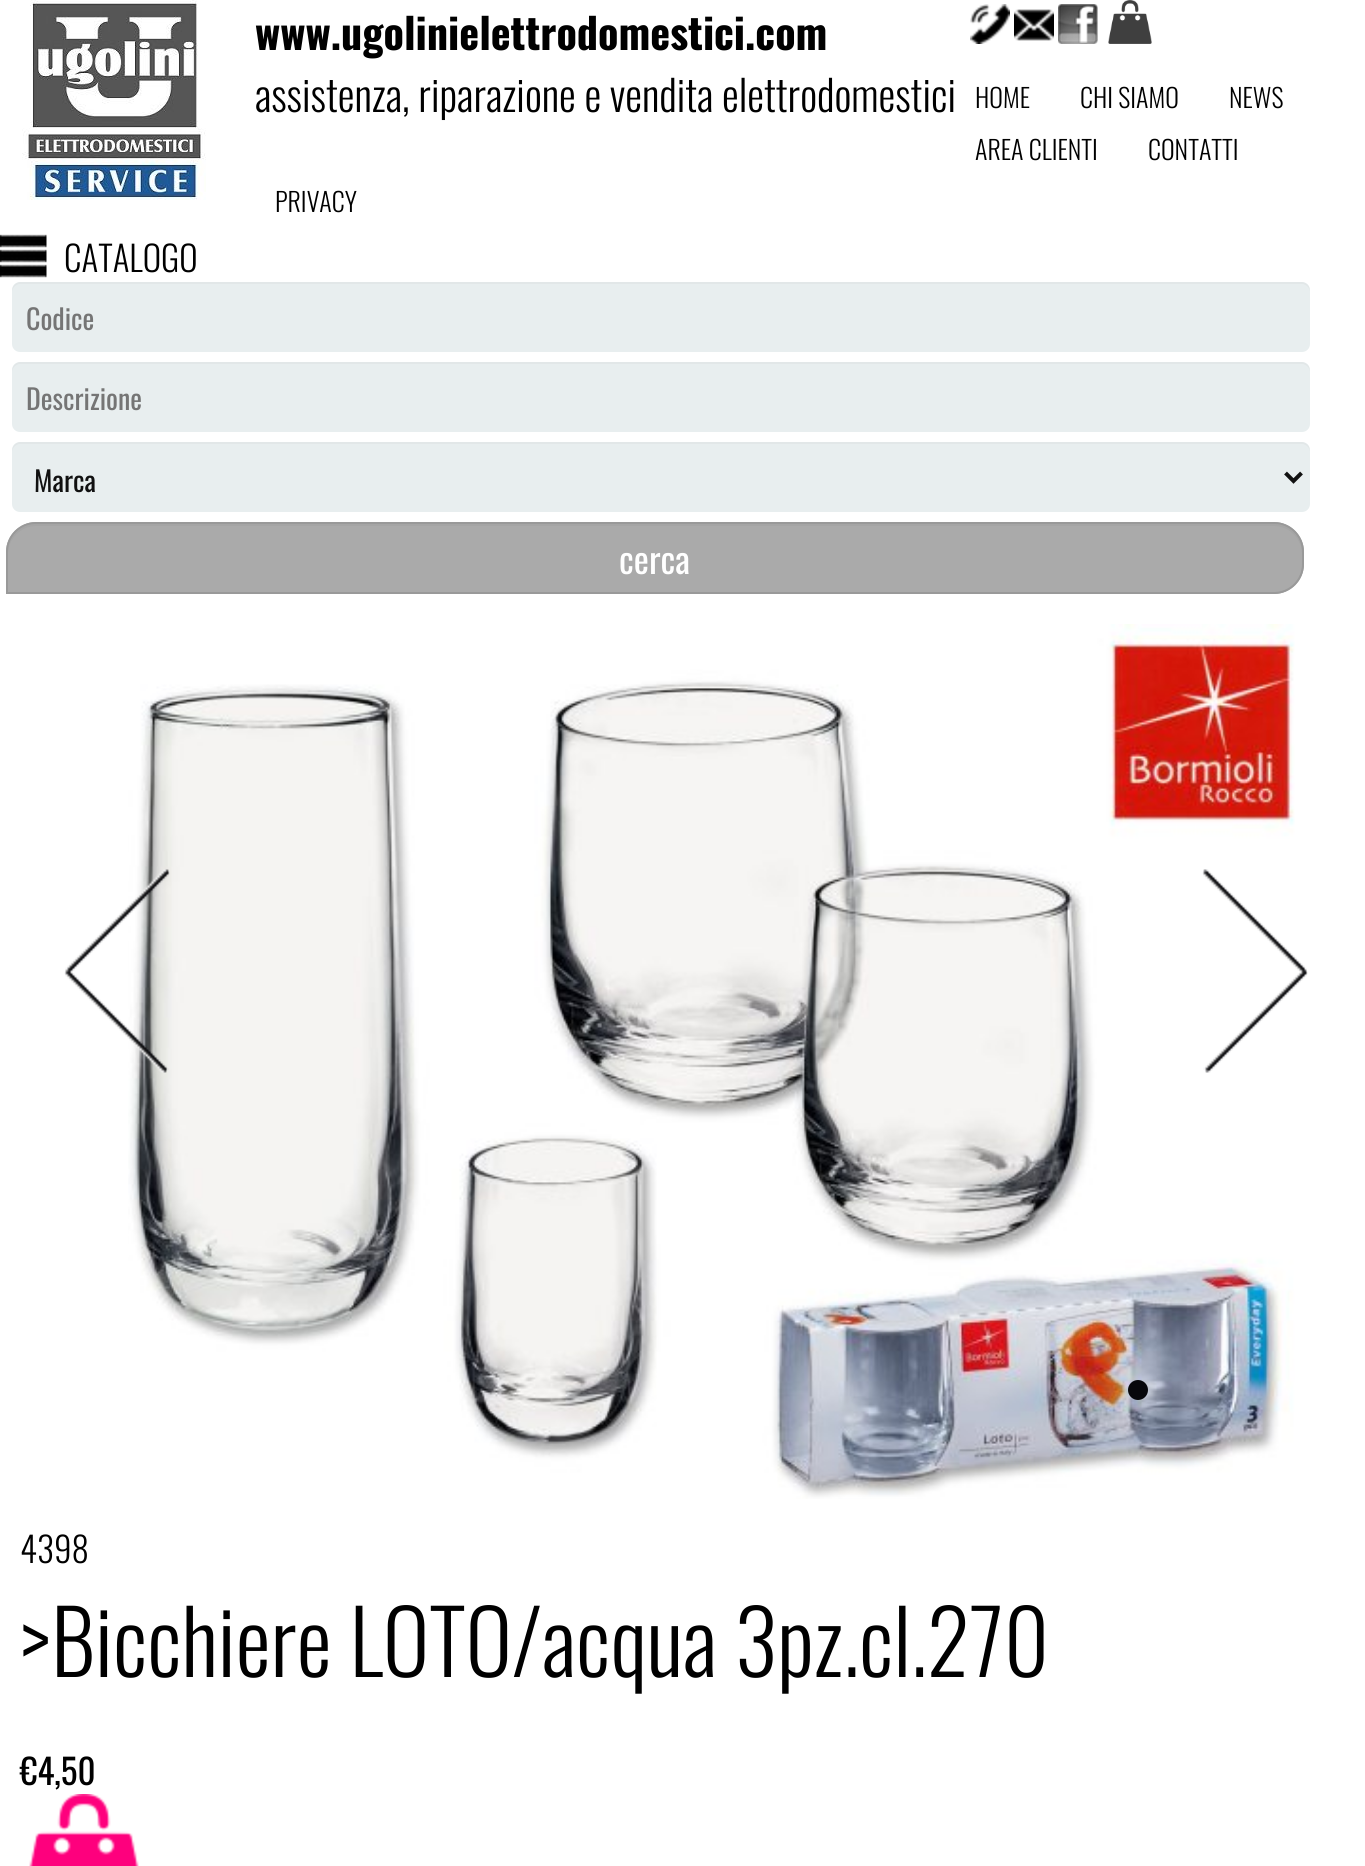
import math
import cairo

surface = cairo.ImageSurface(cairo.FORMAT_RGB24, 1365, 1866)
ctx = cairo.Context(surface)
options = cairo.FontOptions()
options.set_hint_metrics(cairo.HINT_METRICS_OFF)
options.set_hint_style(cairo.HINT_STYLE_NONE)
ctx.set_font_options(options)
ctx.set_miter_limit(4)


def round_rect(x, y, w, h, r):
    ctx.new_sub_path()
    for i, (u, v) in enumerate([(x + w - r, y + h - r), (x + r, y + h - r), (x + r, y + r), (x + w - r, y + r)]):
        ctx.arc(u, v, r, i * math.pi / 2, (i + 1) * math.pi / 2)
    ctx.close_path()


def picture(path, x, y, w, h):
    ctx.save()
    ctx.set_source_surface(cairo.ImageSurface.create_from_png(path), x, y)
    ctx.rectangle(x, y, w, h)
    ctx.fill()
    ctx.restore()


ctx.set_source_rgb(1, 1, 1)
ctx.paint()
picture("img1.png", 22, 0, 184, 200)
ctx.select_font_face("Oswald", cairo.FONT_SLANT_NORMAL, cairo.FONT_WEIGHT_BOLD)
ctx.set_font_size(42.25)
ctx.set_source_rgb(0, 0, 0)
ctx.move_to(255, 50)
ctx.show_text("www.ugolinielettrodomestici.com")
picture("img2.png", 970, 4, 40, 40)
picture("img3.png", 1014, 9, 40, 32)
picture("img4.png", 1058, 4, 40, 40)
picture("img5.png", 1108, 0, 44, 44)
ctx.select_font_face("Oswald Light")
ctx.move_to(255, 112)
ctx.show_text("assistenza, riparazione e vendita elettrodomestici")
ctx.set_font_size(26)
ctx.move_to(975, 108)
ctx.show_text("HOME")
ctx.move_to(1080, 108)
ctx.show_text("CHI SIAMO")
ctx.move_to(1229, 108)
ctx.show_text("NEWS")
ctx.move_to(975, 160)
ctx.show_text("AREA CLIENTI")
ctx.move_to(1148, 160)
ctx.show_text("CONTATTI")
ctx.move_to(275, 212)
ctx.show_text("PRIVACY")
picture("img6.png", 0, 234, 47, 44)
ctx.set_font_size(35)
ctx.move_to(64, 272)
ctx.show_text("CATALOGO")
ctx.set_source_rgb(0.91, 0.933, 0.937)
round_rect(12, 282, 1298, 70, 8)
ctx.fill()
ctx.set_source_rgba(0, 0, 0, 0.03)
ctx.new_path()
ctx.move_to(20, 284)
ctx.line_to(1302, 284)
ctx.curve_to(1306, 284, 1310, 288, 1310, 292)
ctx.line_to(1310, 290)
ctx.curve_to(1310, 286, 1306, 282, 1302, 282)
ctx.line_to(20, 282)
ctx.curve_to(16, 282, 12, 286, 12, 290)
ctx.line_to(12, 292)
ctx.curve_to(12, 288, 16, 284, 20, 284)
ctx.close_path()
ctx.fill()
ctx.select_font_face("Oswald")
ctx.set_font_size(28)
ctx.set_source_rgb(0.459, 0.459, 0.459)
ctx.move_to(26, 330)
ctx.show_text("Codice")
ctx.set_source_rgb(0.91, 0.933, 0.937)
round_rect(12, 362, 1298, 70, 8)
ctx.fill()
ctx.set_source_rgba(0, 0, 0, 0.03)
ctx.new_path()
ctx.move_to(20, 364)
ctx.line_to(1302, 364)
ctx.curve_to(1306, 364, 1310, 368, 1310, 372)
ctx.line_to(1310, 370)
ctx.curve_to(1310, 366, 1306, 362, 1302, 362)
ctx.line_to(20, 362)
ctx.curve_to(16, 362, 12, 366, 12, 370)
ctx.line_to(12, 372)
ctx.curve_to(12, 368, 16, 364, 20, 364)
ctx.close_path()
ctx.fill()
ctx.set_source_rgb(0.459, 0.459, 0.459)
ctx.move_to(26, 410)
ctx.show_text("Descrizione")
ctx.set_source_rgb(0.91, 0.933, 0.937)
round_rect(12, 442, 1298, 70, 8)
ctx.fill()
ctx.set_source_rgba(0, 0, 0, 0.03)
ctx.new_path()
ctx.move_to(20, 444)
ctx.line_to(1302, 444)
ctx.curve_to(1306, 444, 1310, 448, 1310, 452)
ctx.line_to(1310, 450)
ctx.curve_to(1310, 446, 1306, 442, 1302, 442)
ctx.line_to(20, 442)
ctx.curve_to(16, 442, 12, 446, 12, 450)
ctx.line_to(12, 452)
ctx.curve_to(12, 448, 16, 444, 20, 444)
ctx.close_path()
ctx.fill()
ctx.new_path()
ctx.move_to(1285.5, 473)
ctx.line_to(1293.5, 481)
ctx.line_to(1301.5, 473)
ctx.set_source_rgb(0.067, 0.067, 0.067)
ctx.set_line_width(4)
ctx.stroke()
ctx.move_to(34, 492)
ctx.show_text("Marca")
ctx.set_source_rgb(0.667, 0.667, 0.667)
ctx.new_path()
ctx.move_to(36, 522)
ctx.line_to(1274, 522)
ctx.curve_to(1290.5, 522, 1304, 535.5, 1304, 552)
ctx.line_to(1304, 564)
ctx.curve_to(1304, 580.5, 1290.5, 594, 1274, 594)
ctx.line_to(6, 594)
ctx.line_to(6, 552)
ctx.curve_to(6, 535.5, 19.5, 522, 36, 522)
ctx.close_path()
ctx.fill()
ctx.set_source_rgb(0.647, 0.647, 0.647)
ctx.new_path()
ctx.move_to(36, 526)
ctx.line_to(1274, 526)
ctx.curve_to(1289, 526, 1302, 539, 1302, 554)
ctx.line_to(1302, 552)
ctx.curve_to(1302, 537, 1289, 524, 1274, 524)
ctx.line_to(36, 524)
ctx.curve_to(21, 524, 8, 537, 8, 552)
ctx.line_to(8, 554)
ctx.curve_to(8, 539, 21, 526, 36, 526)
ctx.close_path()
ctx.fill()
ctx.new_path()
ctx.move_to(36, 523)
ctx.line_to(1274, 523)
ctx.curve_to(1290, 523, 1303, 536, 1303, 552)
ctx.line_to(1303, 564)
ctx.curve_to(1303, 580, 1290, 593, 1274, 593)
ctx.line_to(7, 593)
ctx.line_to(7, 552)
ctx.curve_to(7, 536, 20, 523, 36, 523)
ctx.close_path()
ctx.set_source_rgb(0.6, 0.6, 0.6)
ctx.set_line_width(2)
ctx.stroke()
ctx.set_font_size(36)
ctx.set_source_rgb(1, 1, 1)
ctx.move_to(619, 574)
ctx.show_text("cerca")
picture("img8.png", 128, 624, 1167, 875)
picture("img7.png", 64, 869, 106, 204)
picture("img9.png", 65, 869, 105, 204)
picture("img10.png", 65, 869, 105, 204)
picture("img11.png", 1202, 869, 106, 204)
picture("img12.png", 1203, 869, 105, 204)
picture("img13.png", 1203, 869, 105, 204)
ctx.set_source_rgb(0.031, 0.031, 0.043)
ctx.arc(1138, 1390, 10, 0, 2 * math.pi)
ctx.fill()
ctx.select_font_face("Oswald Light")
ctx.set_font_size(35)
ctx.set_source_rgb(0, 0, 0)
ctx.move_to(20, 1563)
ctx.show_text("4398")
ctx.set_font_size(88)
ctx.move_to(20, 1677)
ctx.show_text(">Bicchiere LOTO/acqua 3pz.cl.270")
ctx.select_font_face("Oswald")
ctx.set_font_size(35)
ctx.move_to(20, 1785)
ctx.show_text("€4,50")
picture("img14.png", 29, 1794, 110, 72)
surface.write_to_png("page.png")
